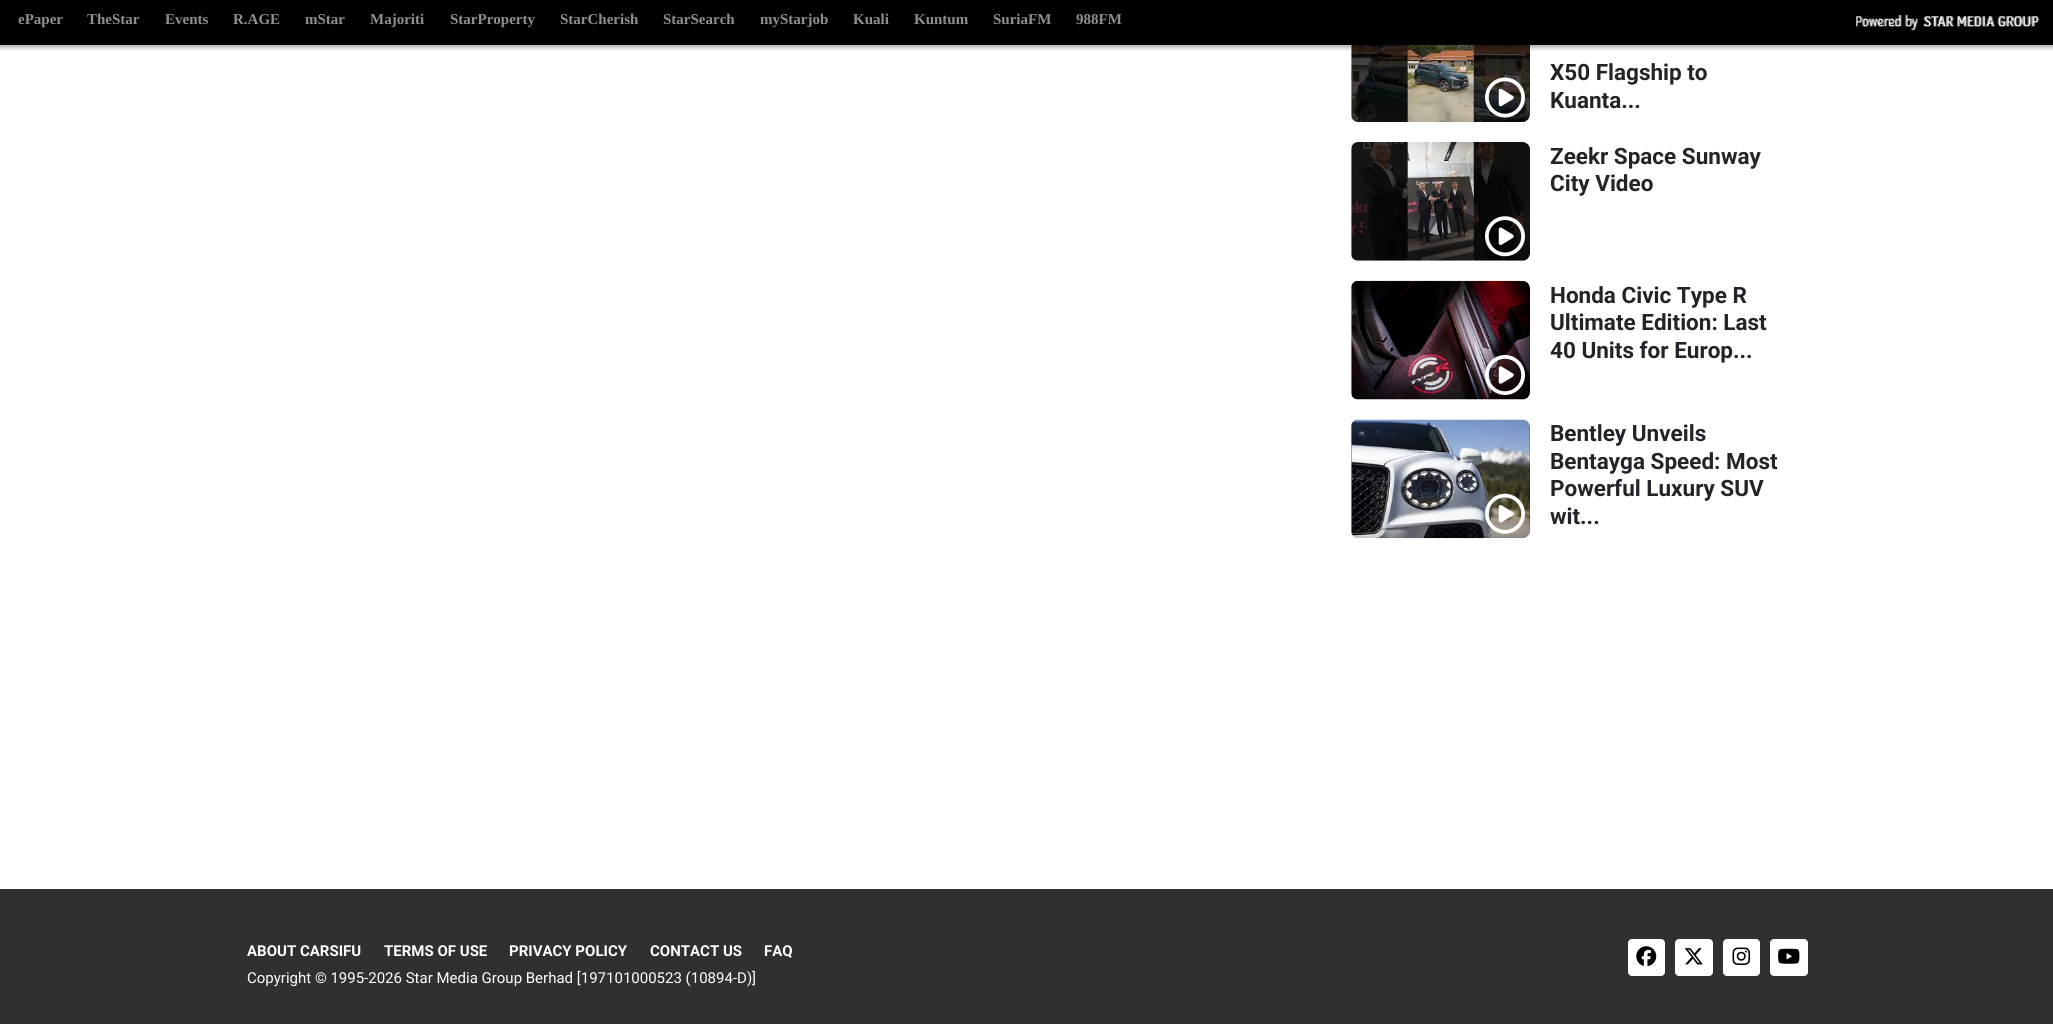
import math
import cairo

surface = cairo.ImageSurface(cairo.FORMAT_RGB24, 2053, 1024)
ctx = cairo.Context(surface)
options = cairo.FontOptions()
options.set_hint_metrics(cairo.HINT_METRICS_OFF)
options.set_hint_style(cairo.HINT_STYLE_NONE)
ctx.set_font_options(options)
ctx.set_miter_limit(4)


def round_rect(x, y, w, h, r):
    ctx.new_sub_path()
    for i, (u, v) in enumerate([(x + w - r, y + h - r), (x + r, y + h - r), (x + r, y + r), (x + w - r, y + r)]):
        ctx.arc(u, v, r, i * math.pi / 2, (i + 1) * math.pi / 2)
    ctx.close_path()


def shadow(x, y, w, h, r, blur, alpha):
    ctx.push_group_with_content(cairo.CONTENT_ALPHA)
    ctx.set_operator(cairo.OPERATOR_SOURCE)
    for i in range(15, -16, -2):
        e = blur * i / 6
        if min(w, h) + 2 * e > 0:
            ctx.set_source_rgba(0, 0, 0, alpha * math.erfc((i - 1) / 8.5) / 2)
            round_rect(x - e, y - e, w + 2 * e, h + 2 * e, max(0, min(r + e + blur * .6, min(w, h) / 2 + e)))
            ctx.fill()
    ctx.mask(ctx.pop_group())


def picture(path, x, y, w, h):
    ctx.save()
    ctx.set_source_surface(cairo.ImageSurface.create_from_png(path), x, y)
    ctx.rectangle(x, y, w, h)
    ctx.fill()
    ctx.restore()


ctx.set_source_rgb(1, 1, 1)
ctx.paint()
picture("img2.png", 1351, 45, 179, 77)
ctx.set_source_rgb(0, 0, 0)
shadow(-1, 0, 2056, 48, 0, 2, 0.3)
ctx.set_source_rgb(0, 0, 0)
ctx.rectangle(0, 0, 2053, 45)
ctx.fill()
ctx.select_font_face("Liberation Serif", cairo.FONT_SLANT_NORMAL, cairo.FONT_WEIGHT_BOLD)
ctx.set_font_size(15)
ctx.set_source_rgb(0.561, 0.561, 0.561)
ctx.move_to(18, 24)
ctx.show_text("ePaper")
ctx.move_to(87, 24)
ctx.show_text("TheStar")
ctx.move_to(165, 24)
ctx.show_text("Events")
ctx.move_to(233, 24)
ctx.show_text("R.AGE")
ctx.move_to(305, 24)
ctx.show_text("mStar")
ctx.move_to(370, 24)
ctx.show_text("Majoriti")
ctx.move_to(450, 24)
ctx.show_text("StarProperty")
ctx.move_to(560, 24)
ctx.show_text("StarCherish")
ctx.move_to(663, 24)
ctx.show_text("StarSearch")
ctx.move_to(760, 24)
ctx.show_text("myStarjob")
ctx.move_to(853, 24)
ctx.show_text("Kuali")
ctx.move_to(914, 24)
ctx.show_text("Kuntum")
ctx.move_to(993, 24)
ctx.show_text("SuriaFM")
ctx.move_to(1076, 24)
ctx.show_text("988FM")
picture("img1.png", 1856, 14, 183, 17)
picture("img3.png", 1485, 77, 40, 41)
ctx.select_font_face("Roboto", cairo.FONT_SLANT_NORMAL, cairo.FONT_WEIGHT_BOLD)
ctx.set_font_size(22.5)
ctx.set_source_rgb(0.129, 0.145, 0.161)
ctx.move_to(1550, 80)
ctx.show_text("X50 Flagship to")
ctx.move_to(1550, 108)
ctx.show_text("Kuanta...")
picture("img4.png", 1351, 142, 179, 119)
picture("img5.png", 1485, 216, 40, 41)
ctx.move_to(1550, 164)
ctx.show_text("Zeekr Space Sunway")
ctx.move_to(1550, 191)
ctx.show_text("City Video")
picture("img6.png", 1351, 280, 179, 120)
picture("img7.png", 1485, 355, 40, 40)
ctx.move_to(1550, 303)
ctx.show_text("Honda Civic Type R")
ctx.move_to(1550, 330)
ctx.show_text("Ultimate Edition: Last")
ctx.move_to(1550, 358)
ctx.show_text("40 Units for Europ...")
picture("img8.png", 1351, 419, 179, 120)
picture("img9.png", 1485, 493, 40, 41)
ctx.move_to(1550, 441)
ctx.show_text("Bentley Unveils")
ctx.move_to(1550, 469)
ctx.show_text("Bentayga Speed: Most")
ctx.move_to(1550, 496)
ctx.show_text("Powerful Luxury SUV")
ctx.move_to(1550, 524)
ctx.show_text("wit...")
ctx.set_source_rgb(0.188, 0.188, 0.188)
ctx.rectangle(0, 889, 2053, 135)
ctx.fill()
ctx.set_font_size(15)
ctx.set_source_rgb(1, 1, 1)
ctx.move_to(247, 956)
ctx.show_text("ABOUT CARSIFU")
ctx.move_to(384, 956)
ctx.show_text("TERMS OF USE")
ctx.move_to(509, 956)
ctx.show_text("PRIVACY POLICY")
ctx.move_to(650, 956)
ctx.show_text("CONTACT US")
ctx.move_to(764, 956)
ctx.show_text("FAQ")
ctx.select_font_face("Roboto")
ctx.move_to(247, 983)
ctx.show_text("Copyright © 1995-2026 Star Media Group Berhad [197101000523 (10894-D)]")
round_rect(1628, 939, 37, 37, 4)
ctx.fill()
picture("img10.png", 1636, 946, 21, 21)
round_rect(1675, 939, 38, 37, 4)
ctx.fill()
picture("img11.png", 1684, 948, 19, 17)
round_rect(1723, 939, 37, 37, 4)
ctx.fill()
picture("img12.png", 1732, 947, 18, 18)
round_rect(1770, 939, 38, 37, 4)
ctx.fill()
picture("img13.png", 1778, 948, 22, 16)
surface.write_to_png("page.png")
